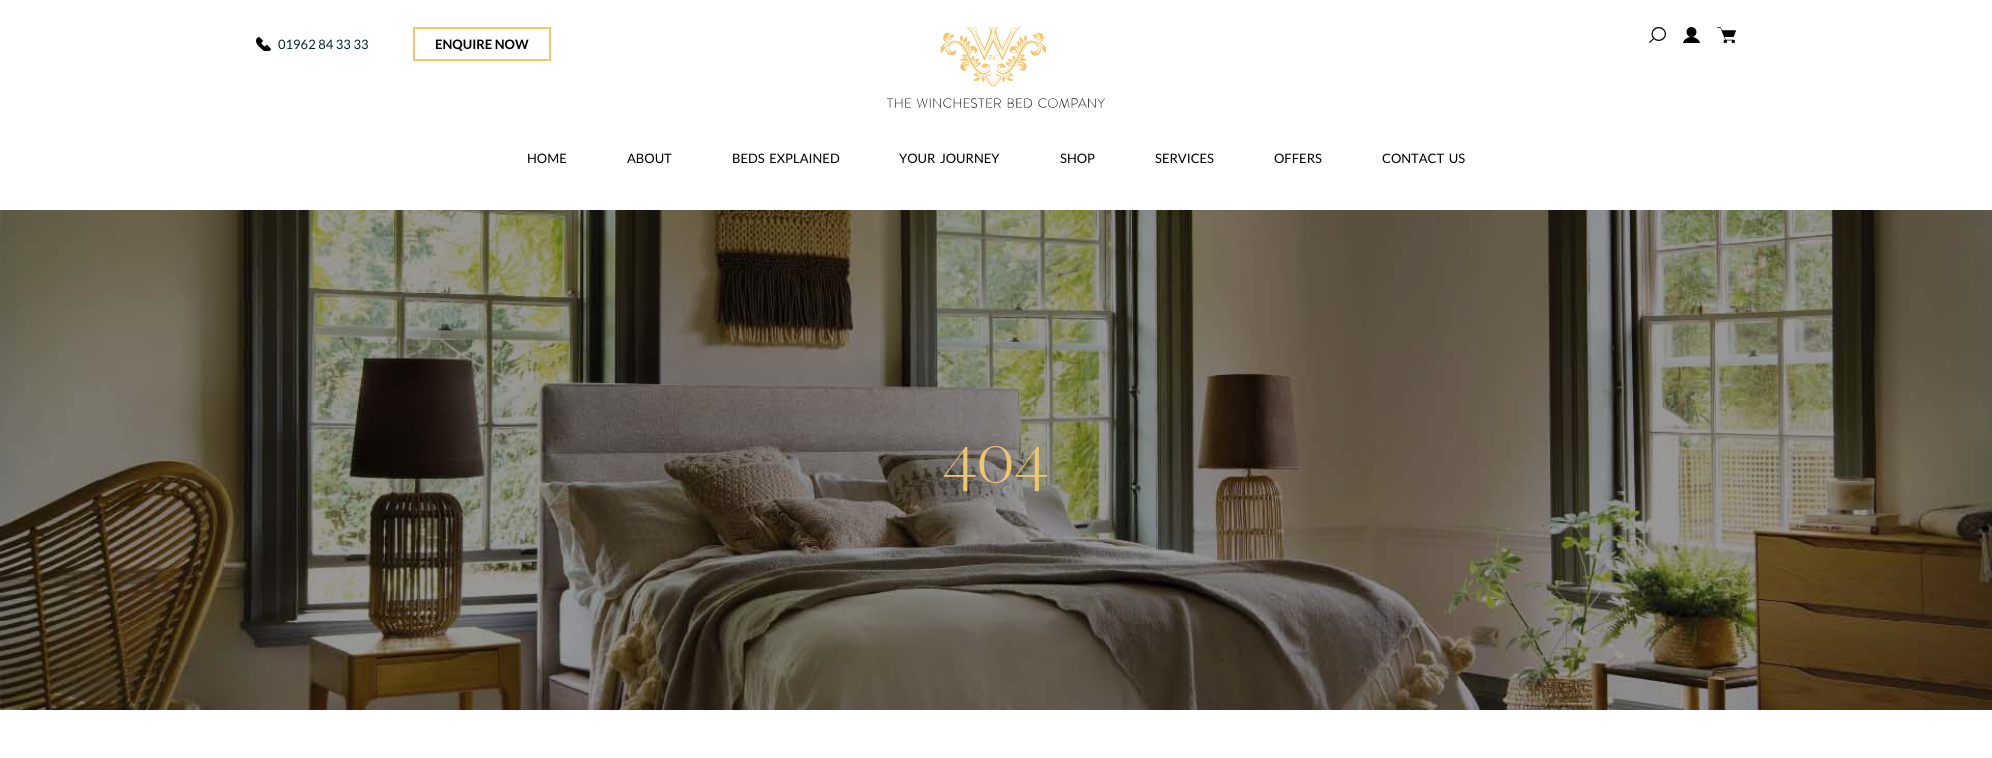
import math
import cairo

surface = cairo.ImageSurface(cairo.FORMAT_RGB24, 1992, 758)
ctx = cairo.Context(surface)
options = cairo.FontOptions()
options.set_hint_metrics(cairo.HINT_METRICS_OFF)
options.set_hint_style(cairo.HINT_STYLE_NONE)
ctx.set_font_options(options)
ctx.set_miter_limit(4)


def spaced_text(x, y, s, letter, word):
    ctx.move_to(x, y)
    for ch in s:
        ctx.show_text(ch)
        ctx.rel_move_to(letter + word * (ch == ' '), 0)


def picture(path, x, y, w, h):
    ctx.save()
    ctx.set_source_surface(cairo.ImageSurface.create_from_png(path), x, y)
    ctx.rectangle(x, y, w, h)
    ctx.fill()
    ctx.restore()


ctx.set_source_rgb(1, 1, 1)
ctx.paint()
picture("img1.png", 887, 27, 218, 81)
picture("img2.png", 1649, 27, 17, 16)
picture("img3.png", 1683, 27, 17, 16)
picture("img4.png", 1717, 27, 19, 16)
picture("img5.png", 256, 37, 15, 14)
ctx.select_font_face("Lato")
ctx.set_font_size(13)
ctx.set_source_rgb(0.02, 0.141, 0.188)
ctx.move_to(278, 49)
ctx.show_text("01962 84 33 33")
ctx.rectangle(414, 28, 136, 32)
ctx.set_source_rgb(0.949, 0.776, 0.435)
ctx.stroke()
ctx.select_font_face("Lato", cairo.FONT_SLANT_NORMAL, cairo.FONT_WEIGHT_BOLD)
ctx.set_source_rgb(0, 0, 0)
ctx.move_to(435, 49)
ctx.show_text("ENQUIRE NOW")
ctx.select_font_face("Lato")
ctx.move_to(527, 163)
ctx.show_text("HOME")
ctx.move_to(627, 163)
ctx.show_text("ABOUT")
spaced_text(732, 163, "BEDS EXPLAINED", 0, 2)
spaced_text(899, 163, "YOUR JOURNEY", 0, 2)
ctx.move_to(1060, 163)
ctx.show_text("SHOP")
ctx.move_to(1155, 163)
ctx.show_text("SERVICES")
ctx.move_to(1274, 163)
ctx.show_text("OFFERS")
spaced_text(1382, 163, "CONTACT US", 0, 2)
picture("img6.png", 0, 210, 1992, 500)
ctx.select_font_face("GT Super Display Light")
ctx.set_font_size(66)
ctx.set_source_rgb(0.949, 0.776, 0.435)
ctx.move_to(943, 482)
ctx.show_text("404")
surface.write_to_png("page.png")
